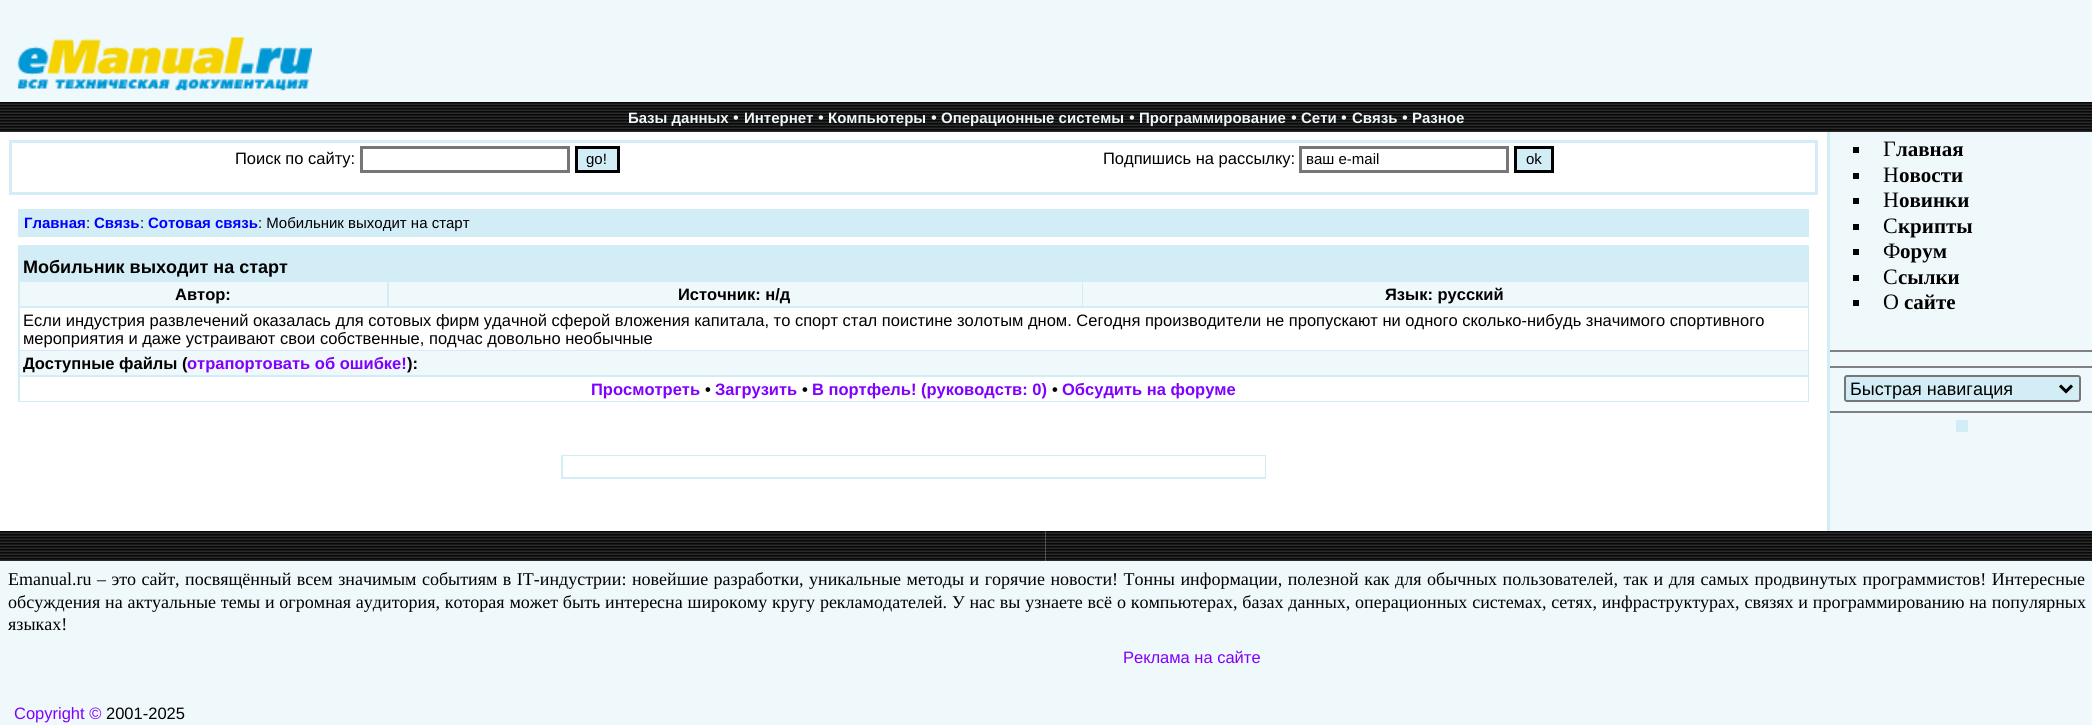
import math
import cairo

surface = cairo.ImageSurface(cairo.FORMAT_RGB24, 2092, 725)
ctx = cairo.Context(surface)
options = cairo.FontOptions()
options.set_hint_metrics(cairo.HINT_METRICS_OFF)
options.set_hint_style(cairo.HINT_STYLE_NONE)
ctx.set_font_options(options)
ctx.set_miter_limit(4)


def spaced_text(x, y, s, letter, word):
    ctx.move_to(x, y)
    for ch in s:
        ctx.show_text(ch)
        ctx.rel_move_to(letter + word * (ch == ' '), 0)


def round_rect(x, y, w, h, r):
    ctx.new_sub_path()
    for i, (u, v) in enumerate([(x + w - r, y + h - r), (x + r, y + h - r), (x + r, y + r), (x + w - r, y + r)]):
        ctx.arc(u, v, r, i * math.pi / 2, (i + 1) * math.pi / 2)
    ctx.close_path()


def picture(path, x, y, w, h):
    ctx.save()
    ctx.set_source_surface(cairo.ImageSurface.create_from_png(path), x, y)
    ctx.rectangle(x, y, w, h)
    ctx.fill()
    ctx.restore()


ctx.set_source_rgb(0.937, 0.969, 0.984)
ctx.paint()
ctx.set_source_rgb(1, 1, 1)
ctx.rectangle(0, 132, 1827, 399)
ctx.fill()
picture("img1.png", 17, 37, 295, 54)
picture("img2.png", 0, 102, 2092, 30)
ctx.select_font_face("Liberation Sans", cairo.FONT_SLANT_NORMAL, cairo.FONT_WEIGHT_BOLD)
ctx.set_font_size(15)
ctx.set_source_rgb(0.937, 0.969, 0.984)
ctx.move_to(628, 123)
ctx.show_text("Базы данных")
ctx.select_font_face("Liberation Sans")
ctx.set_font_size(16.5)
ctx.move_to(733, 123)
ctx.show_text("•")
ctx.select_font_face("Liberation Sans", cairo.FONT_SLANT_NORMAL, cairo.FONT_WEIGHT_BOLD)
ctx.set_font_size(15)
ctx.move_to(744, 123)
ctx.show_text("Интернет")
ctx.select_font_face("Liberation Sans")
ctx.set_font_size(16.5)
ctx.move_to(818, 123)
ctx.show_text("•")
ctx.select_font_face("Liberation Sans", cairo.FONT_SLANT_NORMAL, cairo.FONT_WEIGHT_BOLD)
ctx.set_font_size(15)
ctx.move_to(828, 123)
ctx.show_text("Компьютеры")
ctx.select_font_face("Liberation Sans")
ctx.set_font_size(16.5)
ctx.move_to(931, 123)
ctx.show_text("•")
ctx.select_font_face("Liberation Sans", cairo.FONT_SLANT_NORMAL, cairo.FONT_WEIGHT_BOLD)
ctx.set_font_size(15)
ctx.move_to(941, 123)
ctx.show_text("Операционные системы")
ctx.select_font_face("Liberation Sans")
ctx.set_font_size(16.5)
ctx.move_to(1129, 123)
ctx.show_text("•")
ctx.select_font_face("Liberation Sans", cairo.FONT_SLANT_NORMAL, cairo.FONT_WEIGHT_BOLD)
ctx.set_font_size(15)
ctx.move_to(1139, 123)
ctx.show_text("Программирование")
ctx.select_font_face("Liberation Sans")
ctx.set_font_size(16.5)
ctx.move_to(1291, 123)
ctx.show_text("•")
ctx.select_font_face("Liberation Sans", cairo.FONT_SLANT_NORMAL, cairo.FONT_WEIGHT_BOLD)
ctx.set_font_size(15)
ctx.move_to(1301, 123)
ctx.show_text("Сети")
ctx.select_font_face("Liberation Sans")
ctx.set_font_size(16.5)
ctx.move_to(1341, 123)
ctx.show_text("•")
ctx.select_font_face("Liberation Sans", cairo.FONT_SLANT_NORMAL, cairo.FONT_WEIGHT_BOLD)
ctx.set_font_size(15)
ctx.move_to(1352, 123)
ctx.show_text("Связь")
ctx.select_font_face("Liberation Sans")
ctx.set_font_size(16.5)
ctx.move_to(1402, 123)
ctx.show_text("•")
ctx.select_font_face("Liberation Sans", cairo.FONT_SLANT_NORMAL, cairo.FONT_WEIGHT_BOLD)
ctx.set_font_size(15)
ctx.move_to(1412, 123)
ctx.show_text("Разное")
ctx.set_source_rgb(0.827, 0.929, 0.965)
ctx.rectangle(9, 140, 1809, 55)
ctx.fill()
ctx.set_source_rgb(1, 1, 1)
ctx.rectangle(12, 143, 1803, 49)
ctx.fill()
ctx.select_font_face("Liberation Sans")
ctx.set_font_size(16.5)
ctx.set_source_rgb(0, 0, 0)
ctx.move_to(235, 164)
ctx.show_text("Поиск по сайту:")
ctx.rectangle(361.5, 147.5, 207, 24)
ctx.set_source_rgb(0.463, 0.463, 0.463)
ctx.set_line_width(3)
ctx.stroke()
ctx.set_source_rgb(0.827, 0.929, 0.965)
ctx.rectangle(576.5, 147.5, 42, 24)
ctx.fill_preserve()
ctx.set_source_rgb(0, 0, 0)
ctx.stroke()
ctx.set_font_size(15)
ctx.move_to(586, 164)
ctx.show_text("go!")
ctx.set_font_size(16.5)
ctx.move_to(1103, 164)
ctx.show_text("Подпишись на рассылку:")
ctx.rectangle(1300.5, 147.5, 207, 24)
ctx.set_source_rgb(0.463, 0.463, 0.463)
ctx.stroke()
ctx.set_font_size(15)
ctx.set_source_rgb(0, 0, 0)
ctx.move_to(1306, 164)
ctx.show_text("ваш e-mail")
ctx.set_source_rgb(0.827, 0.929, 0.965)
ctx.rectangle(1515.5, 147.5, 37, 24)
ctx.fill_preserve()
ctx.set_source_rgb(0, 0, 0)
ctx.stroke()
ctx.move_to(1526, 164)
ctx.show_text("ok")
ctx.set_source_rgb(0.827, 0.929, 0.965)
ctx.rectangle(18, 209, 1791, 28)
ctx.fill()
ctx.select_font_face("Liberation Sans", cairo.FONT_SLANT_NORMAL, cairo.FONT_WEIGHT_BOLD)
ctx.set_source_rgb(0, 0, 1)
ctx.move_to(24, 228)
ctx.show_text("Главная")
ctx.select_font_face("Liberation Sans")
ctx.set_source_rgb(0, 0, 0)
ctx.move_to(86, 228)
ctx.show_text(":")
ctx.select_font_face("Liberation Sans", cairo.FONT_SLANT_NORMAL, cairo.FONT_WEIGHT_BOLD)
ctx.set_source_rgb(0, 0, 1)
ctx.move_to(94, 228)
ctx.show_text("Связь")
ctx.select_font_face("Liberation Sans")
ctx.set_source_rgb(0, 0, 0)
ctx.move_to(140, 228)
ctx.show_text(":")
ctx.select_font_face("Liberation Sans", cairo.FONT_SLANT_NORMAL, cairo.FONT_WEIGHT_BOLD)
ctx.set_source_rgb(0, 0, 1)
ctx.move_to(148, 228)
ctx.show_text("Сотовая связь")
ctx.select_font_face("Liberation Sans")
ctx.set_source_rgb(0, 0, 0)
ctx.move_to(258, 228)
ctx.show_text(": Мобильник выходит на старт")
ctx.set_source_rgb(0.827, 0.929, 0.965)
ctx.rectangle(18, 245, 1791, 157)
ctx.fill()
ctx.select_font_face("Liberation Sans", cairo.FONT_SLANT_NORMAL, cairo.FONT_WEIGHT_BOLD)
ctx.set_font_size(18)
ctx.set_source_rgb(0, 0, 0)
ctx.move_to(23, 273)
ctx.show_text("Мобильник выходит на старт")
ctx.set_source_rgb(0.937, 0.969, 0.984)
ctx.rectangle(20, 282, 367, 24)
ctx.fill()
ctx.set_font_size(16.5)
ctx.set_source_rgb(0, 0, 0)
ctx.move_to(175, 300)
ctx.show_text("Автор:")
ctx.set_source_rgb(0.937, 0.969, 0.984)
ctx.rectangle(389, 282, 693, 24)
ctx.fill()
ctx.set_source_rgb(0, 0, 0)
ctx.move_to(678, 300)
ctx.show_text("Источник: н/д")
ctx.set_source_rgb(0.937, 0.969, 0.984)
ctx.rectangle(1083, 282, 725, 24)
ctx.fill()
ctx.set_source_rgb(0, 0, 0)
ctx.move_to(1385, 300)
ctx.show_text("Язык: русский")
ctx.set_source_rgb(1, 1, 1)
ctx.rectangle(20, 308, 1788, 42)
ctx.fill()
ctx.select_font_face("Liberation Sans")
ctx.set_source_rgb(0, 0, 0)
ctx.move_to(23, 326)
ctx.show_text("Если индустрия развлечений оказалась для сотовых фирм удачной сферой вложения капитала, то спорт стал поистине золотым дном. Сегодня производители не пропускают ни одного сколько-нибудь значимого спортивного")
ctx.move_to(23, 344)
ctx.show_text("мероприятия и даже устраивают свои собственные, подчас довольно необычные")
ctx.set_source_rgb(0.937, 0.969, 0.984)
ctx.rectangle(20, 351, 1788, 24)
ctx.fill()
ctx.select_font_face("Liberation Sans", cairo.FONT_SLANT_NORMAL, cairo.FONT_WEIGHT_BOLD)
ctx.set_source_rgb(0, 0, 0)
ctx.move_to(23, 369)
ctx.show_text("Доступные файлы (")
ctx.set_source_rgb(0.502, 0, 1)
ctx.move_to(187, 369)
ctx.show_text("отрапортовать об ошибке!")
ctx.set_source_rgb(0, 0, 0)
ctx.move_to(407, 369)
ctx.show_text("):")
ctx.set_source_rgb(1, 1, 1)
ctx.rectangle(20, 377, 1788, 24)
ctx.fill()
ctx.set_source_rgb(0.502, 0, 1)
ctx.move_to(591, 395)
ctx.show_text("Просмотреть")
ctx.set_source_rgb(0, 0, 0)
ctx.move_to(705, 395)
ctx.show_text("•")
ctx.set_source_rgb(0.502, 0, 1)
ctx.move_to(715, 395)
ctx.show_text("Загрузить")
ctx.set_source_rgb(0, 0, 0)
ctx.move_to(802, 395)
ctx.show_text("•")
ctx.set_source_rgb(0.502, 0, 1)
ctx.move_to(812, 395)
ctx.show_text("В портфель! (руководств: 0)")
ctx.set_source_rgb(0, 0, 0)
ctx.move_to(1052, 395)
ctx.show_text("•")
ctx.set_source_rgb(0.502, 0, 1)
ctx.move_to(1062, 395)
ctx.show_text("Обсудить на форуме")
ctx.set_source_rgb(0.827, 0.929, 0.965)
ctx.rectangle(561, 455, 705, 24)
ctx.fill()
ctx.set_source_rgb(1, 1, 1)
ctx.rectangle(563, 456, 702, 21)
ctx.fill()
ctx.set_source_rgb(0.827, 0.929, 0.965)
ctx.rectangle(1827, 132, 3, 399)
ctx.fill()
ctx.set_source_rgb(0, 0, 0)
ctx.rectangle(1853, 147, 6, 6)
ctx.fill()
ctx.select_font_face("Liberation Serif")
ctx.set_font_size(22)
ctx.move_to(1883, 156)
ctx.show_text("Г")
ctx.select_font_face("Liberation Serif", cairo.FONT_SLANT_NORMAL, cairo.FONT_WEIGHT_BOLD)
ctx.set_font_size(21)
ctx.move_to(1896, 156)
ctx.show_text("лавная")
ctx.rectangle(1853, 173, 6, 6)
ctx.fill()
ctx.select_font_face("Liberation Serif")
ctx.set_font_size(22)
ctx.move_to(1883, 182)
ctx.show_text("Н")
ctx.select_font_face("Liberation Serif", cairo.FONT_SLANT_NORMAL, cairo.FONT_WEIGHT_BOLD)
ctx.set_font_size(21)
ctx.move_to(1899, 182)
ctx.show_text("овости")
ctx.rectangle(1853, 198, 6, 6)
ctx.fill()
ctx.select_font_face("Liberation Serif")
ctx.set_font_size(22)
ctx.move_to(1883, 207)
ctx.show_text("Н")
ctx.select_font_face("Liberation Serif", cairo.FONT_SLANT_NORMAL, cairo.FONT_WEIGHT_BOLD)
ctx.set_font_size(21)
ctx.move_to(1899, 207)
ctx.show_text("овинки")
ctx.rectangle(1853, 224, 6, 6)
ctx.fill()
ctx.select_font_face("Liberation Serif")
ctx.set_font_size(22)
ctx.move_to(1883, 233)
ctx.show_text("С")
ctx.select_font_face("Liberation Serif", cairo.FONT_SLANT_NORMAL, cairo.FONT_WEIGHT_BOLD)
ctx.set_font_size(21)
ctx.move_to(1898, 233)
ctx.show_text("крипты")
ctx.rectangle(1853, 249, 6, 6)
ctx.fill()
ctx.select_font_face("Liberation Serif")
ctx.set_font_size(22)
ctx.move_to(1883, 258)
ctx.show_text("Ф")
ctx.select_font_face("Liberation Serif", cairo.FONT_SLANT_NORMAL, cairo.FONT_WEIGHT_BOLD)
ctx.set_font_size(21)
ctx.move_to(1900, 258)
ctx.show_text("орум")
ctx.rectangle(1853, 275, 6, 6)
ctx.fill()
ctx.select_font_face("Liberation Serif")
ctx.set_font_size(22)
ctx.move_to(1883, 284)
ctx.show_text("С")
ctx.select_font_face("Liberation Serif", cairo.FONT_SLANT_NORMAL, cairo.FONT_WEIGHT_BOLD)
ctx.set_font_size(21)
ctx.move_to(1898, 284)
ctx.show_text("сылки")
ctx.rectangle(1853, 300, 6, 6)
ctx.fill()
ctx.select_font_face("Liberation Serif")
ctx.set_font_size(22)
ctx.move_to(1883, 309)
ctx.show_text("О")
ctx.select_font_face("Liberation Serif", cairo.FONT_SLANT_NORMAL, cairo.FONT_WEIGHT_BOLD)
ctx.set_font_size(21)
ctx.move_to(1904, 309)
ctx.show_text("сайте")
ctx.set_source_rgb(0.502, 0.502, 0.502)
ctx.rectangle(1830, 350, 262, 2)
ctx.fill()
ctx.rectangle(1830, 366, 262, 2)
ctx.fill()
ctx.set_source_rgb(0.827, 0.929, 0.965)
round_rect(1845, 376, 235, 25, 2)
ctx.fill_preserve()
ctx.set_source_rgb(0.463, 0.463, 0.463)
ctx.set_line_width(2)
ctx.stroke()
ctx.new_path()
ctx.move_to(2060, 385.5)
ctx.line_to(2066, 391.5)
ctx.line_to(2072, 385.5)
ctx.set_source_rgb(0, 0, 0)
ctx.set_line_width(3)
ctx.stroke()
ctx.select_font_face("Liberation Sans")
ctx.set_font_size(18)
ctx.move_to(1850, 395)
ctx.show_text("Быстрая навигация")
ctx.set_source_rgb(0.502, 0.502, 0.502)
ctx.rectangle(1830, 411, 262, 2)
ctx.fill()
ctx.set_source_rgb(0.827, 0.929, 0.965)
ctx.rectangle(1956, 420, 12, 12)
ctx.fill()
picture("img3.png", 0, 531, 1046, 30)
picture("img4.png", 1045, 531, 1047, 30)
ctx.select_font_face("Liberation Serif")
ctx.set_source_rgb(0, 0, 0)
spaced_text(8, 585, "Emanual.ru – это сайт, посвящённый всем значимым событиям в IT-индустрии: новейшие разработки, уникальные методы и горячие новости! Тонны информации, полезной как для обычных пользователей, так и для самых продвинутых программистов! Интересные", 0, 1)
spaced_text(8, 608, "обсуждения на актуальные темы и огромная аудитория, которая может быть интересна широкому кругу рекламодателей. У нас вы узнаете всё о компьютерах, базах данных, операционных системах, сетях, инфраструктурах, связях и программированию на популярных", 0, 0.3)
ctx.move_to(8, 630)
ctx.show_text("языках!")
ctx.select_font_face("Liberation Sans")
ctx.set_font_size(16.5)
ctx.set_source_rgb(0.502, 0, 1)
ctx.move_to(1123, 663)
ctx.show_text("Реклама на сайте")
ctx.move_to(14, 719)
ctx.show_text("Copyright ©")
ctx.set_source_rgb(0, 0, 0)
ctx.move_to(106, 719)
ctx.show_text("2001-2025")
surface.write_to_png("page.png")
